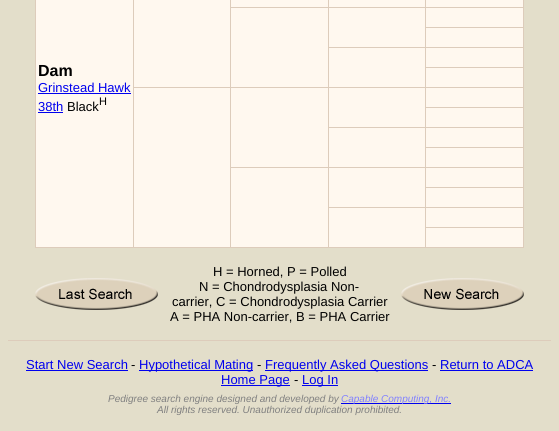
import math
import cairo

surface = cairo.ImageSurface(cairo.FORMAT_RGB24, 559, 431)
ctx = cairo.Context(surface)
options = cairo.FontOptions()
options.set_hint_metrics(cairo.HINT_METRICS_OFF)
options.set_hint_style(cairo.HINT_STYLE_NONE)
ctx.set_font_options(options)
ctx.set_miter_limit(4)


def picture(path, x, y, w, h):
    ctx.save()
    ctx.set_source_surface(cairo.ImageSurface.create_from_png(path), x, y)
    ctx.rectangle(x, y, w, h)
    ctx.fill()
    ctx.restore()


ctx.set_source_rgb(0.89, 0.871, 0.792)
ctx.paint()
ctx.set_source_rgb(0.867, 0.8, 0.733)
ctx.rectangle(35, 0, 489, 248)
ctx.fill()
ctx.set_source_rgb(1, 0.969, 0.937)
ctx.rectangle(329, 0, 96, 7)
ctx.fill()
ctx.rectangle(426, 0, 97, 7)
ctx.fill()
ctx.rectangle(231, 8, 97, 79)
ctx.fill()
ctx.rectangle(329, 8, 96, 39)
ctx.fill()
ctx.rectangle(426, 8, 97, 19)
ctx.fill()
ctx.rectangle(426, 28, 97, 19)
ctx.fill()
ctx.rectangle(134, 0, 96, 87)
ctx.fill()
ctx.rectangle(231, 0, 97, 7)
ctx.fill()
ctx.rectangle(36, 0, 97, 247)
ctx.fill()
ctx.select_font_face("Liberation Sans", cairo.FONT_SLANT_NORMAL, cairo.FONT_WEIGHT_BOLD)
ctx.set_font_size(16)
ctx.set_source_rgb(0, 0, 0)
ctx.move_to(38, 76)
ctx.show_text("Dam")
ctx.select_font_face("Liberation Sans")
ctx.set_font_size(13)
ctx.set_source_rgb(0, 0, 0.933)
ctx.move_to(38, 92)
ctx.show_text("Grinstead Hawk")
ctx.rectangle(38, 93, 93, 1)
ctx.fill()
ctx.move_to(38, 111)
ctx.show_text("38th")
ctx.rectangle(38, 112, 25, 1)
ctx.fill()
ctx.set_source_rgb(0, 0, 0)
ctx.move_to(67, 111)
ctx.show_text("Black")
ctx.set_font_size(11)
ctx.move_to(99, 105)
ctx.show_text("H")
ctx.set_source_rgb(1, 0.969, 0.937)
ctx.rectangle(329, 48, 96, 39)
ctx.fill()
ctx.rectangle(426, 48, 97, 19)
ctx.fill()
ctx.rectangle(426, 68, 97, 19)
ctx.fill()
ctx.rectangle(134, 88, 96, 159)
ctx.fill()
ctx.rectangle(231, 88, 97, 79)
ctx.fill()
ctx.rectangle(329, 88, 96, 39)
ctx.fill()
ctx.rectangle(426, 88, 97, 19)
ctx.fill()
ctx.rectangle(426, 108, 97, 19)
ctx.fill()
ctx.rectangle(329, 128, 96, 39)
ctx.fill()
ctx.rectangle(426, 128, 97, 19)
ctx.fill()
ctx.rectangle(426, 148, 97, 19)
ctx.fill()
ctx.rectangle(231, 168, 97, 79)
ctx.fill()
ctx.rectangle(329, 168, 96, 39)
ctx.fill()
ctx.rectangle(426, 168, 97, 19)
ctx.fill()
ctx.rectangle(426, 188, 97, 19)
ctx.fill()
ctx.rectangle(329, 208, 96, 39)
ctx.fill()
ctx.rectangle(426, 208, 97, 19)
ctx.fill()
ctx.rectangle(426, 228, 97, 19)
ctx.fill()
picture("img1.png", 35, 278, 123, 32)
ctx.set_font_size(13)
ctx.set_source_rgb(0, 0, 0)
ctx.move_to(213, 276)
ctx.show_text("H = Horned, P = Polled")
ctx.move_to(199, 291)
ctx.show_text("N = Chondrodysplasia Non-")
ctx.move_to(172, 306)
ctx.show_text("carrier, C = Chondrodysplasia Carrier")
ctx.move_to(170, 321)
ctx.show_text("A = PHA Non-carrier, B = PHA Carrier")
picture("img2.png", 401, 278, 123, 32)
ctx.set_source_rgb(0.867, 0.8, 0.733)
ctx.rectangle(8, 340, 543, 1)
ctx.fill()
ctx.set_source_rgb(0, 0, 0.933)
ctx.move_to(26, 369)
ctx.show_text("Start New Search")
ctx.rectangle(26, 370, 102, 1)
ctx.fill()
ctx.set_source_rgb(0, 0, 0)
ctx.move_to(131, 369)
ctx.show_text("-")
ctx.set_source_rgb(0, 0, 0.933)
ctx.rectangle(139, 370, 114, 1)
ctx.fill()
ctx.move_to(139, 369)
ctx.show_text("Hypothetical Mating")
ctx.set_source_rgb(0, 0, 0)
ctx.move_to(257, 369)
ctx.show_text("-")
ctx.set_source_rgb(0, 0, 0.933)
ctx.rectangle(265, 370, 163, 1)
ctx.fill()
ctx.move_to(265, 369)
ctx.show_text("Frequently Asked Questions")
ctx.set_source_rgb(0, 0, 0)
ctx.move_to(432, 369)
ctx.show_text("-")
ctx.set_source_rgb(0, 0, 0.933)
ctx.move_to(440, 369)
ctx.show_text("Return to ADCA")
ctx.rectangle(440, 370, 93, 1)
ctx.fill()
ctx.rectangle(221, 385, 69, 1)
ctx.fill()
ctx.move_to(221, 384)
ctx.show_text("Home Page")
ctx.set_source_rgb(0, 0, 0)
ctx.move_to(294, 384)
ctx.show_text("-")
ctx.set_source_rgb(0, 0, 0.933)
ctx.rectangle(302, 385, 36, 1)
ctx.fill()
ctx.move_to(302, 384)
ctx.show_text("Log In")
ctx.select_font_face("Liberation Sans", cairo.FONT_SLANT_ITALIC)
ctx.set_font_size(10)
ctx.set_source_rgb(0.502, 0.502, 0.502)
ctx.move_to(108, 402)
ctx.show_text("Pedigree search engine designed and developed by")
ctx.set_source_rgb(0, 0, 0.933)
ctx.rectangle(341, 403, 110, 1)
ctx.fill()
ctx.set_source_rgb(0.502, 0.502, 1)
ctx.move_to(341, 402)
ctx.show_text("Capable Computing, Inc.")
ctx.set_source_rgb(0.502, 0.502, 0.502)
ctx.move_to(157, 413)
ctx.show_text("All rights reserved. Unauthorized duplication prohibited.")
surface.write_to_png("page.png")
